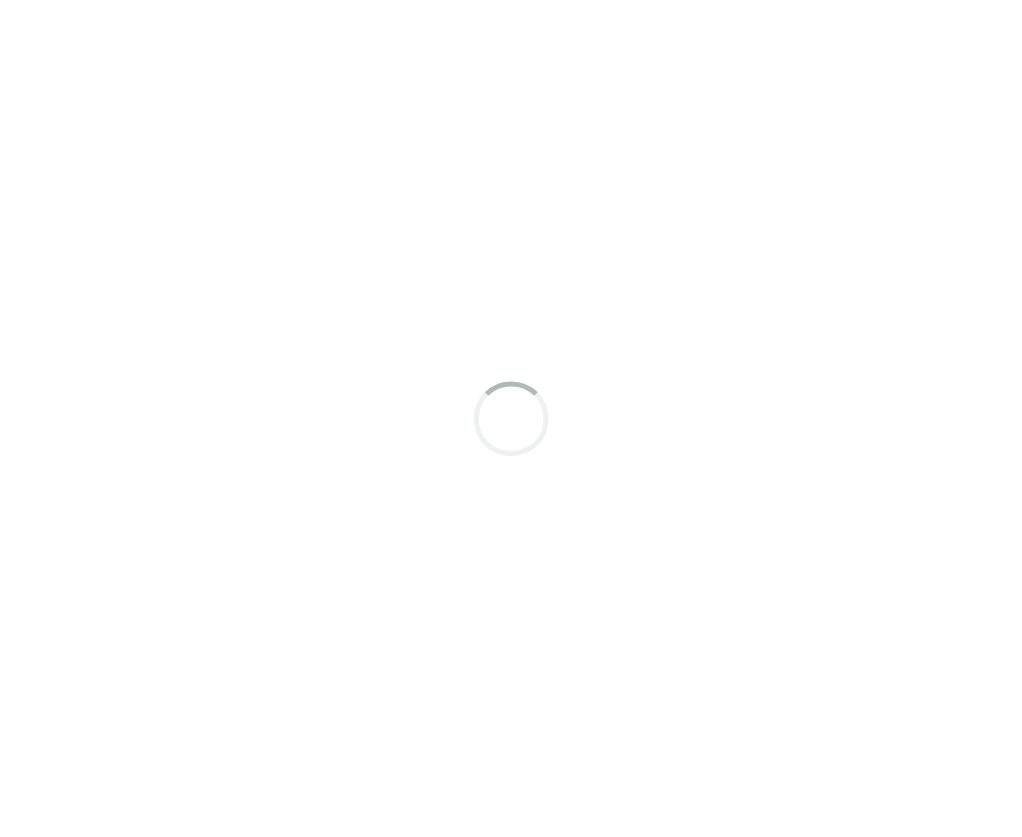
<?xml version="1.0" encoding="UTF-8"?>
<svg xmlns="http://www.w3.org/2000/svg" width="1022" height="837">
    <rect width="100%" height="100%" fill="#FFFFFF"/>
    <path d="M 486.5 394 C 500 380.5 522.5 380.5 536 394" fill="none" stroke="#AFBAB8" stroke-width="5"/>
    <path d="M 536 394 C 542.5 400.5 546 409.5 546 419 C 546.5 460.5 485 466.5 477 425.5 C 474.5 414 478.5 402 486.5 394" fill="none" stroke="#AFBAB8" stroke-opacity="0.2" stroke-width="5"/>
</svg>
